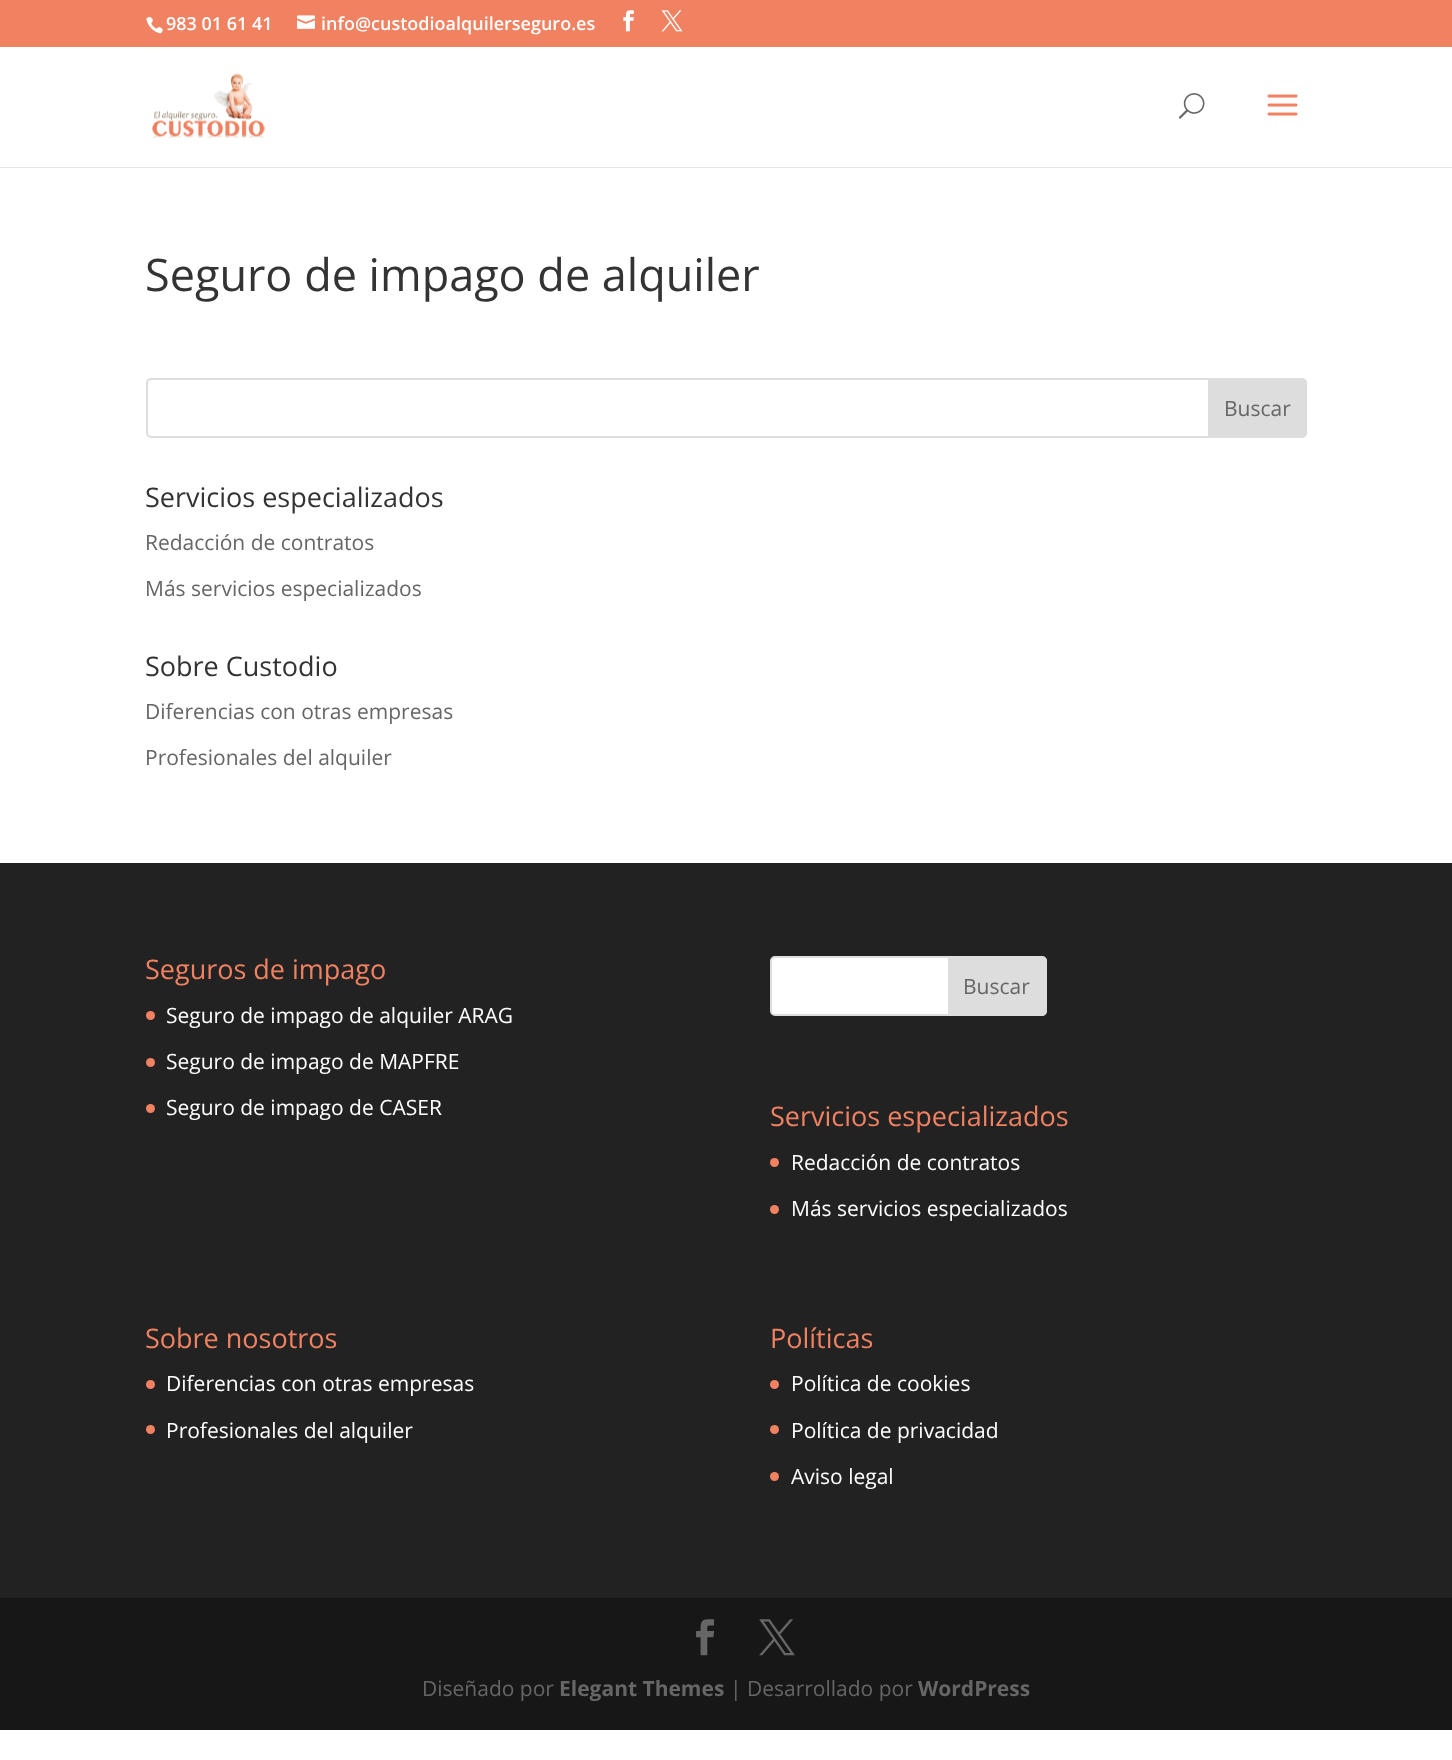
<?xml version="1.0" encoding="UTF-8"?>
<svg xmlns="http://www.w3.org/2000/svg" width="1452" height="1760">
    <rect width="100%" height="100%" fill="#FFFFFF"/>
    <rect x="0" y="0" width="1452" height="47" fill="#F08161"/>
    <image x="146" y="16" width="17" height="18" href="img_01.png"/>
    <text x="166" y="30" font-family="Open Sans" font-size="18" font-weight="600" fill="#FFFFFF">983 01 61 41</text>
    <image x="297" y="15" width="18" height="14" href="img_02.png"/>
    <text x="321" y="30" font-family="Open Sans" font-size="18" font-weight="600" fill="#FFFFFF">info@custodioalquilerseguro.es</text>
    <image x="623" y="10" width="11" height="22" href="img_03.png"/>
    <image x="661" y="10" width="22" height="22" href="img_04.png"/>
    <rect x="0" y="167" width="1452" height="1" fill="#E6E6E6"/>
    <image x="152" y="73" width="113" height="65" href="img_05.png"/>
    <image x="1178" y="93" width="27" height="26" href="img_06.png"/>
    <image x="1267" y="94" width="31" height="22" href="img_07.png"/>
    <text x="145" y="291" font-family="Open Sans" font-size="45" fill="#333333">Seguro de impago de alquiler</text>
    <rect x="147" y="379" width="1159" height="58" rx="4" fill="none" stroke="#DDDDDD" stroke-width="2"/>
    <path d="M 1209 379 H 1302 C 1304 379 1306 381 1306 383 V 433 C 1306 435 1304 437 1302 437 H 1209 Z" fill="#DDDDDD" stroke="#DDDDDD" stroke-width="2"/>
    <text x="1224" y="416" font-family="Open Sans" font-size="21" fill="#666666">Buscar</text>
    <text x="145" y="507" font-family="Open Sans" font-size="27" fill="#333333">Servicios especializados</text>
    <text x="145" y="550" font-family="Open Sans" font-size="21" fill="#666666">Redacción de contratos</text>
    <text x="145" y="596" font-family="Open Sans" font-size="21" fill="#666666">Más servicios especializados</text>
    <text x="145" y="676" font-family="Open Sans" font-size="27" fill="#333333">Sobre Custodio</text>
    <text x="145" y="719" font-family="Open Sans" font-size="21" fill="#666666">Diferencias con otras empresas</text>
    <text x="145" y="765" font-family="Open Sans" font-size="21" fill="#666666">Profesionales del alquiler</text>
    <rect x="0" y="863" width="1452" height="735" fill="#222222"/>
    <text x="145" y="979" font-family="Open Sans" font-size="27" fill="#F08161">Seguros de impago</text>
    <circle cx="150.5" cy="1015.5" r="4.5" fill="#F08161"/>
    <text x="166" y="1023" font-family="Open Sans" font-size="21" fill="#FFFFFF">Seguro de impago de alquiler ARAG</text>
    <circle cx="150.5" cy="1062.5" r="4.5" fill="#F08161"/>
    <text x="166" y="1069" font-family="Open Sans" font-size="21" fill="#FFFFFF">Seguro de impago de MAPFRE</text>
    <circle cx="150.5" cy="1108.5" r="4.5" fill="#F08161"/>
    <text x="166" y="1115" font-family="Open Sans" font-size="21" fill="#FFFFFF">Seguro de impago de CASER</text>
    <rect x="771" y="957" width="275" height="58" rx="4" fill="#FFFFFF" stroke="#DDDDDD" stroke-width="2"/>
    <path d="M 949 957 H 1042 C 1044 957 1046 959 1046 961 V 1011 C 1046 1013 1044 1015 1042 1015 H 949 Z" fill="#DDDDDD" stroke="#DDDDDD" stroke-width="2"/>
    <text x="963" y="994" font-family="Open Sans" font-size="21" fill="#666666">Buscar</text>
    <text x="770" y="1126" font-family="Open Sans" font-size="27" fill="#F08161">Servicios especializados</text>
    <circle cx="774.5" cy="1162.5" r="4.5" fill="#F08161"/>
    <text x="791" y="1170" font-family="Open Sans" font-size="21" fill="#FFFFFF">Redacción de contratos</text>
    <circle cx="774.5" cy="1209.5" r="4.5" fill="#F08161"/>
    <text x="791" y="1216" font-family="Open Sans" font-size="21" fill="#FFFFFF">Más servicios especializados</text>
    <text x="145" y="1348" font-family="Open Sans" font-size="27" fill="#F08161">Sobre nosotros</text>
    <circle cx="150.5" cy="1384.5" r="4.5" fill="#F08161"/>
    <text x="166" y="1391" font-family="Open Sans" font-size="21" fill="#FFFFFF">Diferencias con otras empresas</text>
    <circle cx="150.5" cy="1429.5" r="4.5" fill="#F08161"/>
    <text x="166" y="1438" font-family="Open Sans" font-size="21" fill="#FFFFFF">Profesionales del alquiler</text>
    <text x="770" y="1348" font-family="Open Sans" font-size="27" fill="#F08161">Políticas</text>
    <circle cx="774.5" cy="1384.5" r="4.5" fill="#F08161"/>
    <text x="791" y="1391" font-family="Open Sans" font-size="21" fill="#FFFFFF">Política de cookies</text>
    <circle cx="774.5" cy="1429.5" r="4.5" fill="#F08161"/>
    <text x="791" y="1438" font-family="Open Sans" font-size="21" fill="#FFFFFF">Política de privacidad</text>
    <circle cx="774.5" cy="1476.5" r="4.5" fill="#F08161"/>
    <text x="791" y="1484" font-family="Open Sans" font-size="21" fill="#FFFFFF">Aviso legal</text>
    <rect x="0" y="1598" width="1452" height="132" fill="#171717"/>
    <image x="696" y="1619" width="19" height="37" href="img_08.png"/>
    <image x="759" y="1619" width="36" height="37" href="img_09.png"/>
    <text x="422" y="1696" font-family="Open Sans" font-size="21" fill="#666666">Diseñado por</text>
    <text x="559" y="1696" font-family="Open Sans" font-size="21" font-weight="700" fill="#666666">Elegant Themes</text>
    <text x="730" y="1696" font-family="Open Sans" font-size="21" fill="#666666">| Desarrollado por</text>
    <text x="918" y="1696" font-family="Open Sans" font-size="21" font-weight="700" fill="#666666">WordPress</text>
</svg>
